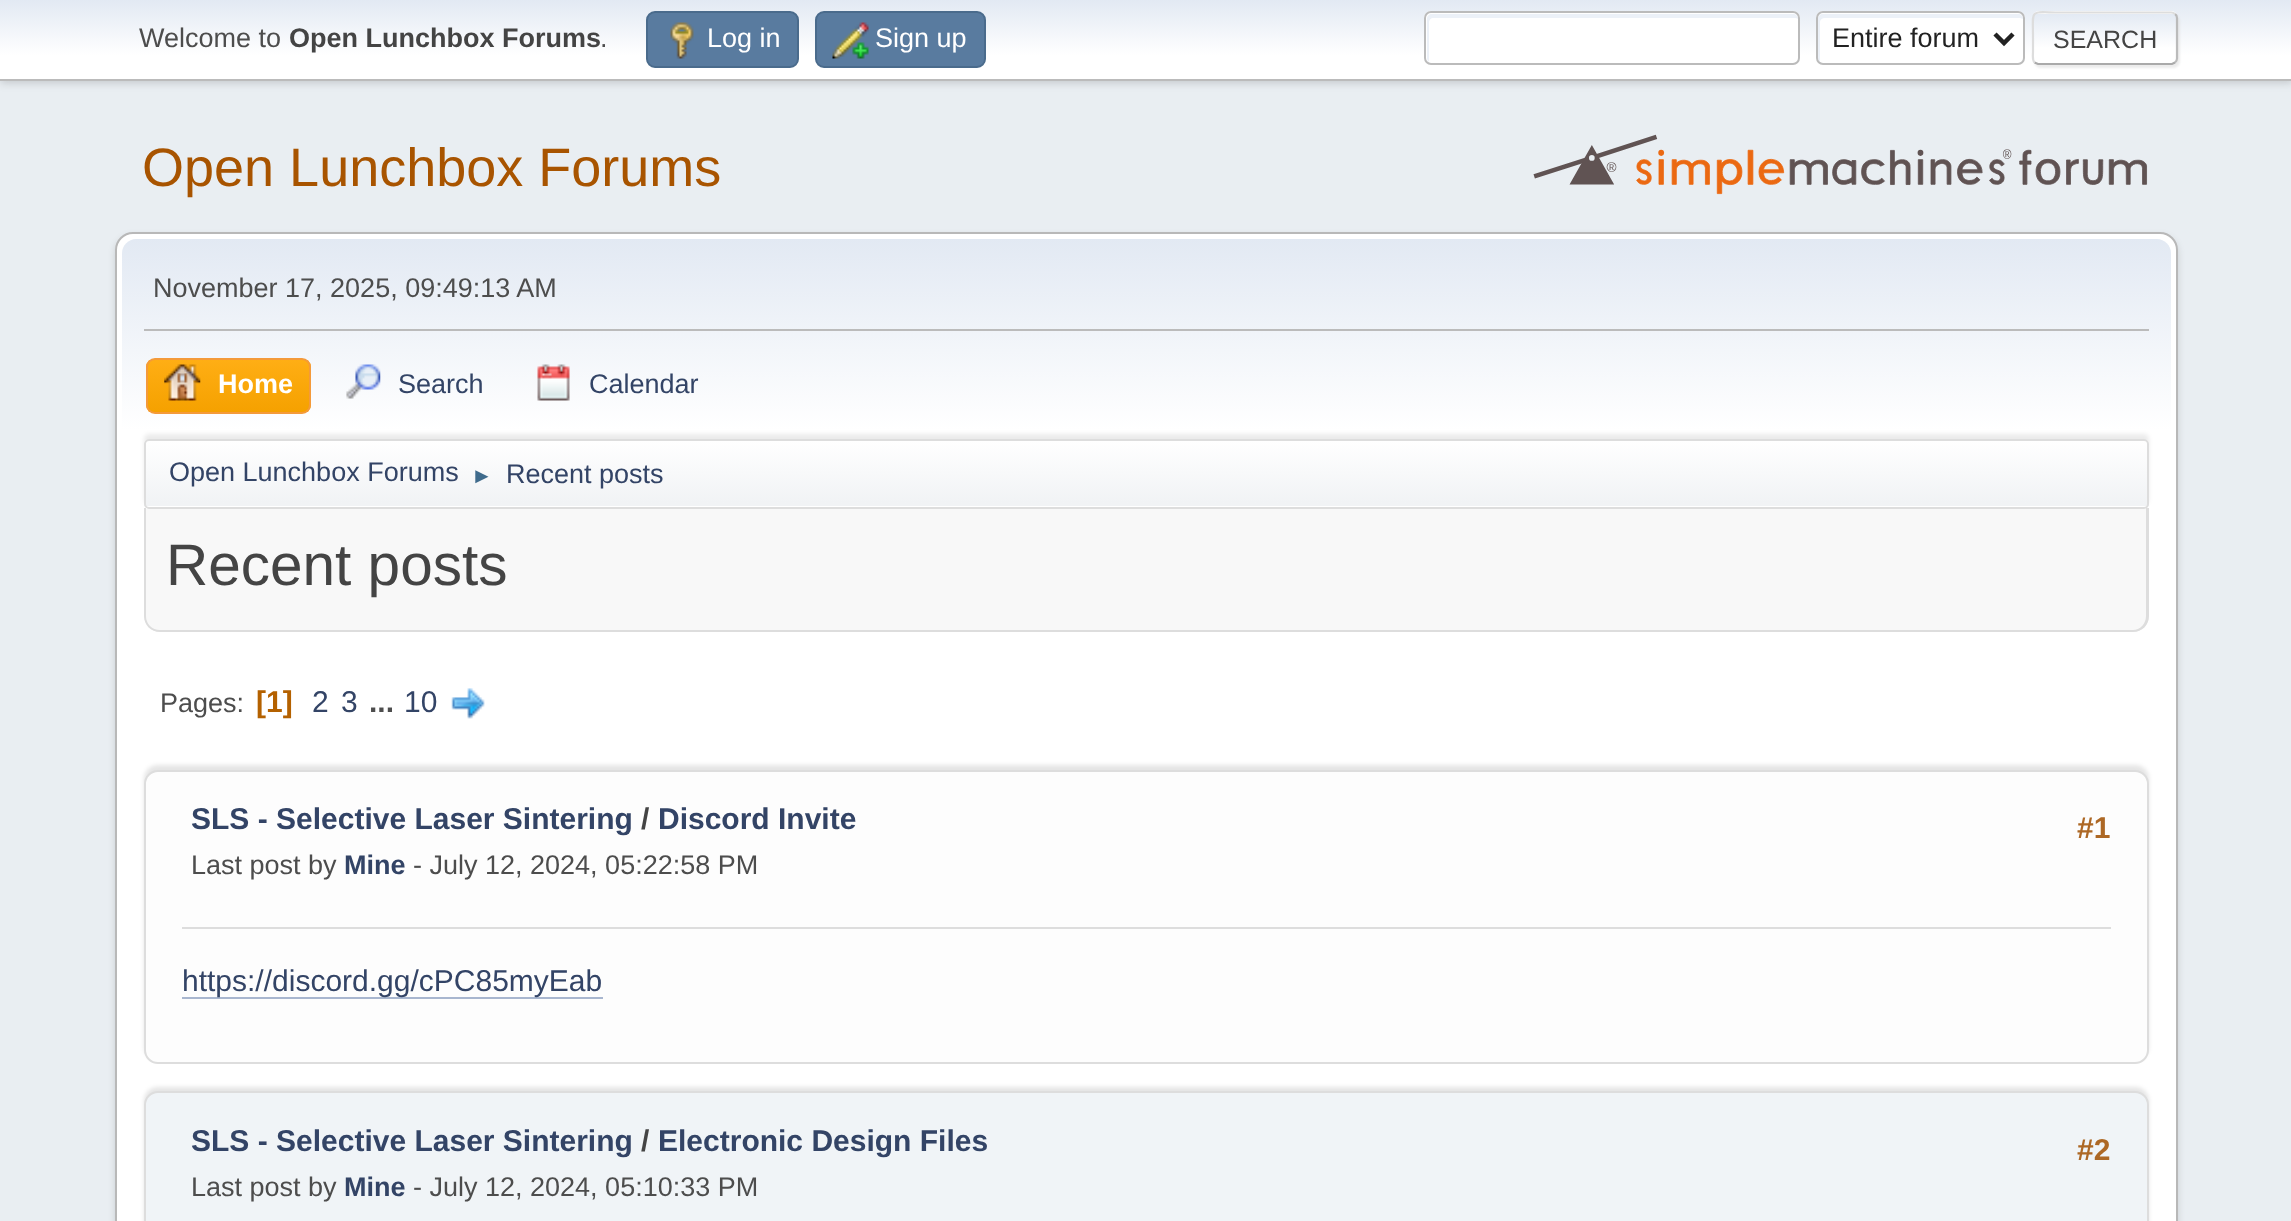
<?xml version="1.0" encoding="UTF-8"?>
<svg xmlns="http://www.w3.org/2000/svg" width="2291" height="1221">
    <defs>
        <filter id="blur1" x="-50%" y="-200%" width="200%" height="500%"><feGaussianBlur stdDeviation="4.5"/></filter>
        <linearGradient id="g1" gradientUnits="userSpaceOnUse" x1="1146" y1="0" x2="1146" y2="79"><stop offset="0" stop-color="#E2E9F3"/><stop offset="0.7" stop-color="#FFFFFF"/></linearGradient>
        <filter id="blur2" x="-50%" y="-200%" width="200%" height="500%"><feGaussianBlur stdDeviation="1"/></filter>
        <clipPath id="clip1"><rect x="2032" y="11" width="146" height="54" rx="7"/></clipPath>
        <linearGradient id="g2" gradientUnits="userSpaceOnUse" x1="2105" y1="-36" x2="2105" y2="14"><stop offset="0" stop-color="#E2E9F3"/><stop offset="0.7" stop-color="#FFFFFF"/></linearGradient>
        <linearGradient id="g3" gradientUnits="userSpaceOnUse" x1="2105" y1="13" x2="2105" y2="63"><stop offset="0" stop-color="#E2E9F3"/><stop offset="0.7" stop-color="#FFFFFF"/></linearGradient>
        <filter id="blur3" x="-50%" y="-200%" width="200%" height="500%"><feGaussianBlur stdDeviation="3.5"/></filter>
        <linearGradient id="g4" gradientUnits="userSpaceOnUse" x1="1146" y1="238" x2="1146" y2="513"><stop offset="0" stop-color="#E2E9F3"/><stop offset="0.7" stop-color="#FFFFFF"/></linearGradient>
        <clipPath id="clip2"><rect x="146" y="358" width="165" height="56" rx="9"/></clipPath>
        <linearGradient id="g5" gradientUnits="userSpaceOnUse" x1="228" y1="360" x2="228" y2="412"><stop offset="0" stop-color="#FFAE14"/><stop offset="1" stop-color="#F5A100"/></linearGradient>
        <filter id="blur4" x="-50%" y="-200%" width="200%" height="500%"><feGaussianBlur stdDeviation="2"/></filter>
        <clipPath id="clip3"><rect x="144" y="439" width="2005" height="70" rx="5"/></clipPath>
        <linearGradient id="g6" gradientUnits="userSpaceOnUse" x1="1146" y1="441" x2="1146" y2="506"><stop offset="0" stop-color="#FFFFFF"/><stop offset="0.95" stop-color="#F1F3F5"/></linearGradient>
    </defs>
    <rect width="100%" height="100%" fill="#E9EEF2"/>
    <rect x="0" y="2" width="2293" height="81" fill="#000000" fill-opacity="0.16" filter="url(#blur1)"/>
    <rect x="0" y="0" width="2291" height="79" fill="url(#g1)"/>
    <rect x="0" y="79" width="2291" height="2" fill="#BBBBBB"/>
    <text x="139" y="47" font-family="Liberation Sans" font-size="27" fill="#4D4D4D">Welcome to</text>
    <text x="289" y="47" font-family="Liberation Sans" font-size="27" font-weight="700" fill="#444444">Open Lunchbox Forums</text>
    <text x="600" y="47" font-family="Liberation Sans" font-size="27" fill="#4D4D4D">.</text>
    <rect x="647" y="12" width="151" height="55" rx="8" fill="#597B9F" stroke="#4A6B8C" stroke-width="2"/>
    <image x="670" y="22" width="24" height="37" href="img_01.png"/>
    <text x="707" y="47" font-family="Liberation Sans" font-size="27" fill="#FFFFFF">Log in</text>
    <rect x="816" y="12" width="169" height="55" rx="8" fill="#597B9F" stroke="#4A6B8C" stroke-width="2"/>
    <image x="832" y="22" width="37" height="37" href="img_02.png"/>
    <text x="875" y="47" font-family="Liberation Sans" font-size="27" fill="#FFFFFF">Sign up</text>
    <rect x="1424" y="11" width="376" height="54" rx="7" fill="#FFFFFF"/>
    <path d="M 1433 18 H 1796 L 1798 19 C 1798 16 1796 14 1793 14 H 1432 C 1429 14 1427 16 1427 19 V 58 C 1427 60 1428 61 1429 62 V 22 C 1429 20 1431 18 1433 18 Z" fill="#ECF1F8"/>
    <rect x="1425" y="12" width="374" height="52" rx="6" fill="none" stroke="#BBBBBB" stroke-width="2"/>
    <rect x="1816" y="11" width="209" height="54" rx="7" fill="#FFFFFF"/>
    <path d="M 1825 18 H 2020 L 2023 19 C 2023 16 2021 14 2018 14 H 1823 C 1820 14 1818 16 1818 19 V 58 C 1818 60 1819 61 1820 62 V 22 C 1820 20 1822 18 1825 18 Z" fill="#ECF1F8"/>
    <rect x="1817" y="12" width="207" height="52" rx="6" fill="none" stroke="#BBBBBB" stroke-width="2"/>
    <path d="M 1995 34 L 2004 43 L 2013 34" fill="none" stroke="#222222" stroke-width="4.5"/>
    <text x="1832" y="47" font-family="Liberation Sans" font-size="27" fill="#222222">Entire forum</text>
    <rect x="2034" y="14" width="146" height="54" rx="7" fill="#DDDDDD" fill-opacity="0.57" filter="url(#blur2)"/>
    <g clip-path="url(#clip1)">
        <rect x="2032" y="11" width="146" height="3" fill="url(#g2)"/>
        <rect x="2032" y="14" width="146" height="49" fill="url(#g3)"/>
    </g>
    <path d="M 2175 14 C 2176.5 15 2177 16.5 2177 18 V 58.5 C 2177 60 2176.5 61.5 2175 62.5" fill="none" stroke="#BBBBBB" stroke-width="2.2"/>
    <path d="M 2175 62.5 L 2172 64 H 2038 L 2034.5 62.5" fill="none" stroke="#AAAAAA" stroke-width="2.2"/>
    <path d="M 2034.5 62.5 C 2032 60 2033 55 2033 52 V 38 C 2033 7.5 2028.5 12.5 2060.5 12.5 H 2171 C 2172.5 12.5 2174 13 2175 14" fill="none" stroke="#DDDDDD" stroke-width="2.2"/>
    <text x="2053" y="48" font-family="Liberation Sans" font-size="25" fill="#444444">SEARCH</text>
    <text x="142" y="186" font-family="Liberation Sans" font-size="54" fill="#A85400">Open Lunchbox Forums</text>
    <image x="1533" y="134" width="615" height="61" href="img_03.png"/>
    <rect x="115" y="236" width="2063" height="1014" rx="18" fill="#000000" fill-opacity="0.14" filter="url(#blur3)"/>
    <rect x="116" y="233" width="2061" height="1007" rx="17" fill="#FFFFFF" stroke="#B8B8B8" stroke-width="2"/>
    <path d="M 136 239 H 2157 C 2164.5 239 2171 245.5 2171 253 V 513 H 122 V 253 C 122 245.5 128.5 239 136 239 Z" fill="url(#g4)"/>
    <rect x="144" y="329" width="2005" height="2" fill="#BBBBBB"/>
    <text x="153" y="297" font-family="Liberation Sans" font-size="27" fill="#4D4D4D">November 17, 2025, 09:49:13 AM</text>
    <g clip-path="url(#clip2)">
        <rect x="146" y="360" width="165" height="52" fill="url(#g5)"/>
    </g>
    <rect x="147" y="359" width="163" height="54" rx="8" fill="none" stroke="#F49A3A" stroke-width="2"/>
    <image x="164" y="364" width="37" height="37" href="img_04.png"/>
    <text x="218" y="393" font-family="Liberation Sans" font-size="27" font-weight="700" fill="#FFFFFF">Home</text>
    <image x="346" y="364" width="35" height="35" href="img_05.png"/>
    <text x="398" y="393" font-family="Liberation Sans" font-size="27" fill="#334466">Search</text>
    <image x="537" y="364" width="33" height="37" href="img_06.png"/>
    <text x="589" y="393" font-family="Liberation Sans" font-size="27" fill="#334466">Calendar</text>
    <rect x="144" y="434" width="2005" height="70" rx="5" fill="#000000" fill-opacity="0.08" filter="url(#blur4)"/>
    <rect x="144" y="439" width="2005" height="70" rx="5" fill="#FFFFFF"/>
    <g clip-path="url(#clip3)">
        <rect x="144" y="441" width="2005" height="65" fill="url(#g6)"/>
    </g>
    <rect x="145" y="440" width="2003" height="68" rx="4" fill="none" stroke="#DDDDDD" stroke-width="2"/>
    <text x="169" y="481" font-family="Liberation Sans" font-size="27" fill="#334466">Open Lunchbox Forums</text>
    <text x="471" y="483" font-family="Liberation Sans" font-size="22" fill="#3F6B8C">►</text>
    <text x="506" y="483" font-family="Liberation Sans" font-size="27" fill="#334466">Recent posts</text>
    <path d="M 144 509 H 2149 V 616 C 2149 625 2142 632 2133 632 H 160 C 151 632 144 625 144 616 Z" fill="#F8F8F8"/>
    <path d="M 144 508 H 2149 V 616 C 2149 625 2142 632 2133 632 H 160 C 151 632 144 625 144 616 Z M 146 508 H 2146 V 616 C 2146 624 2140 630 2133 630 H 160 C 152 630 146 624 146 616 Z" fill="#DDDDDD" fill-rule="evenodd"/>
    <text x="166" y="585" font-family="Liberation Sans" font-size="58.5" fill="#444444">Recent posts</text>
    <text x="160" y="712" font-family="Liberation Sans" font-size="27" fill="#4D4D4D">Pages:</text>
    <text x="256" y="712" font-family="Liberation Sans" font-size="30" font-weight="700" fill="#B46100">[1]</text>
    <text x="312" y="712" font-family="Liberation Sans" font-size="30" fill="#334466">2</text>
    <text x="341" y="712" font-family="Liberation Sans" font-size="30" fill="#334466">3</text>
    <text x="369" y="712" font-family="Liberation Sans" font-size="30" font-weight="700" fill="#4D4D4D">...</text>
    <text x="404" y="712" font-family="Liberation Sans" font-size="30" fill="#334466">10</text>
    <image x="451" y="688" width="34" height="31" href="img_07.png"/>
    <rect x="144" y="765" width="2005" height="295" rx="14" fill="#000000" fill-opacity="0.1" filter="url(#blur4)"/>
    <rect x="145" y="771" width="2003" height="292" rx="13" fill="#FDFDFD" stroke="#DDDDDD" stroke-width="2"/>
    <text x="191" y="829" font-family="Liberation Sans" font-size="30" font-weight="700" fill="#334466">SLS - Selective Laser Sintering</text>
    <text x="641" y="829" font-family="Liberation Sans" font-size="30" font-weight="700" fill="#444444">/</text>
    <text x="658" y="829" font-family="Liberation Sans" font-size="30" font-weight="700" fill="#334466">Discord Invite</text>
    <text x="191" y="874" font-family="Liberation Sans" font-size="27" fill="#4D4D4D">Last post by</text>
    <text x="344" y="874" font-family="Liberation Sans" font-size="27" font-weight="700" fill="#334466">Mine</text>
    <text x="413" y="874" font-family="Liberation Sans" font-size="27" fill="#4D4D4D">- July 12, 2024, 05:22:58 PM</text>
    <text x="2077" y="838" font-family="Liberation Sans" font-size="30" font-weight="700" fill="#AD6825">#1</text>
    <rect x="182" y="927" width="1929" height="2" fill="#DDDDDD"/>
    <rect x="182" y="997" width="421" height="2" fill="#A8B6CF"/>
    <text x="182" y="991" font-family="Liberation Sans" font-size="30" fill="#334466">https://discord.gg/cPC85myEab</text>
    <rect x="144" y="1087" width="2005" height="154" rx="14" fill="#000000" fill-opacity="0.1" filter="url(#blur4)"/>
    <rect x="145" y="1092" width="2003" height="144" rx="13" fill="#F0F4F7" stroke="#DDDDDD" stroke-width="2"/>
    <text x="191" y="1151" font-family="Liberation Sans" font-size="30" font-weight="700" fill="#334466">SLS - Selective Laser Sintering</text>
    <text x="641" y="1151" font-family="Liberation Sans" font-size="30" font-weight="700" fill="#444444">/</text>
    <text x="658" y="1151" font-family="Liberation Sans" font-size="30" font-weight="700" fill="#334466">Electronic Design Files</text>
    <text x="191" y="1196" font-family="Liberation Sans" font-size="27" fill="#4D4D4D">Last post by</text>
    <text x="344" y="1196" font-family="Liberation Sans" font-size="27" font-weight="700" fill="#334466">Mine</text>
    <text x="413" y="1196" font-family="Liberation Sans" font-size="27" fill="#4D4D4D">- July 12, 2024, 05:10:33 PM</text>
    <text x="2077" y="1160" font-family="Liberation Sans" font-size="30" font-weight="700" fill="#AD6825">#2</text>
</svg>
